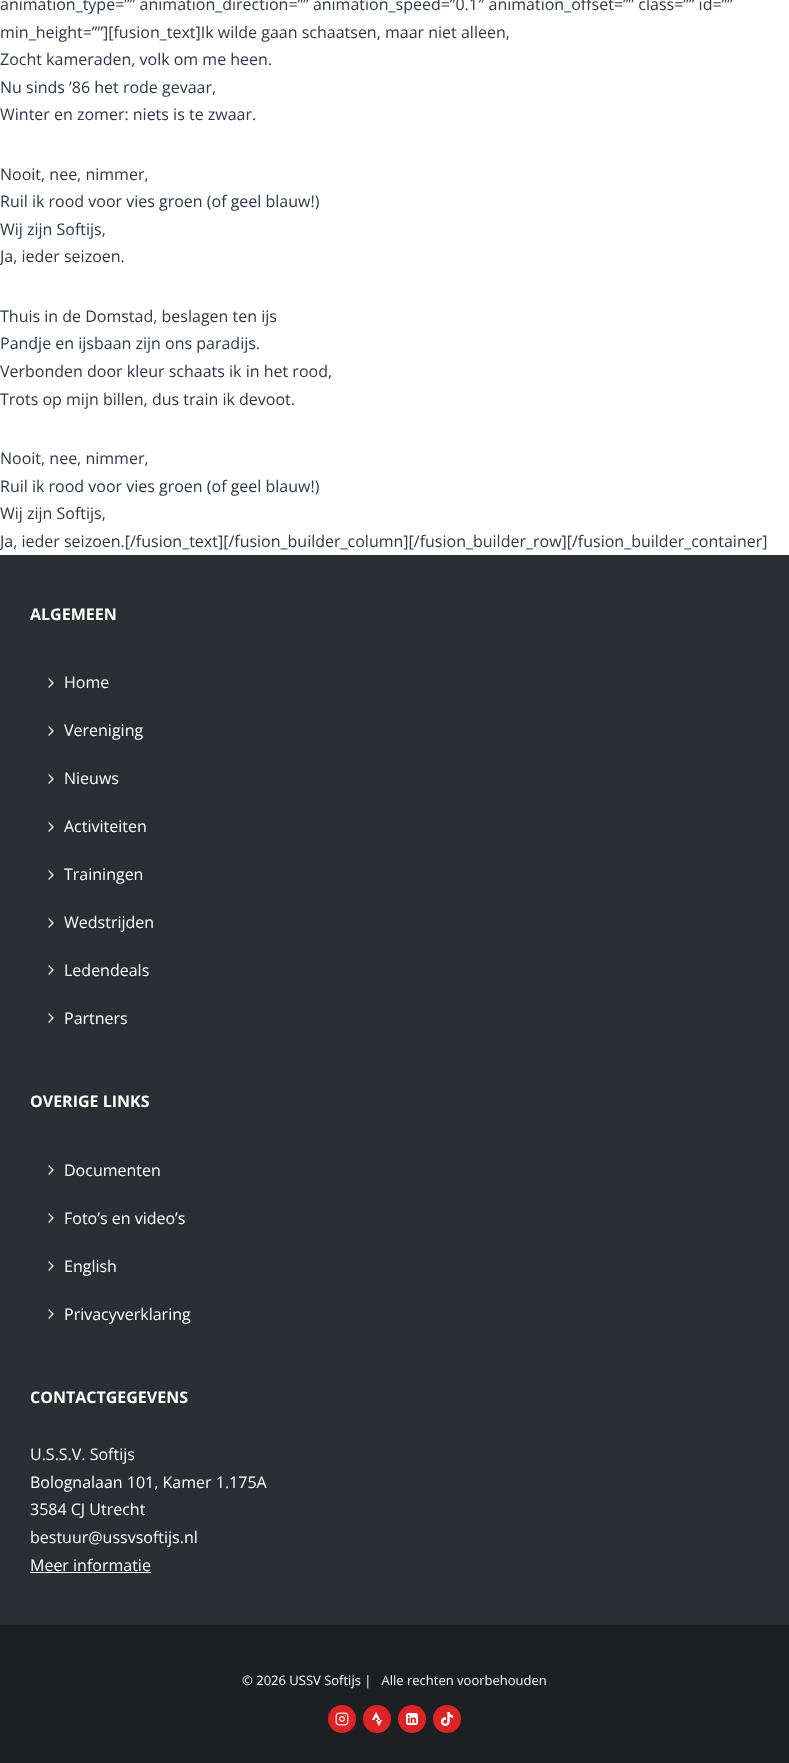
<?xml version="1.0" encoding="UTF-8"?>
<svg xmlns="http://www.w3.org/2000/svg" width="789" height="1763">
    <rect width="100%" height="100%" fill="#FFFFFF"/>
    <text font-family="Open Sans" font-size="16" fill="#2D3748">
        <tspan x="0" y="10">animation_type=”” animation_direction=”” animation_speed=”0.1″ animation_offset=”” class=”” id=””</tspan>
        <tspan x="0" y="38">min_height=””][fusion_text]Ik wilde gaan schaatsen, maar niet alleen,</tspan>
        <tspan x="0" y="65">Zocht kameraden, volk om me heen.</tspan>
        <tspan x="0" y="93">Nu sinds ’86 het rode gevaar,</tspan>
        <tspan x="0" y="120">Winter en zomer: niets is te zwaar.</tspan>
    </text>
    <text font-family="Open Sans" font-size="16" fill="#2D3748">
        <tspan x="0" y="180">Nooit, nee, nimmer,</tspan>
        <tspan x="0" y="207">Ruil ik rood voor vies groen (of geel blauw!)</tspan>
        <tspan x="0" y="235">Wij zijn Softijs,</tspan>
        <tspan x="0" y="262">Ja, ieder seizoen.</tspan>
    </text>
    <text font-family="Open Sans" font-size="16" fill="#2D3748">
        <tspan x="0" y="322">Thuis in de Domstad, beslagen ten ijs</tspan>
        <tspan x="0" y="349">Pandje en ijsbaan zijn ons paradijs.</tspan>
        <tspan x="0" y="377">Verbonden door kleur schaats ik in het rood,</tspan>
        <tspan x="0" y="405">Trots op mijn billen, dus train ik devoot.</tspan>
    </text>
    <text font-family="Open Sans" font-size="16" fill="#2D3748">
        <tspan x="0" y="464">Nooit, nee, nimmer,</tspan>
        <tspan x="0" y="492">Ruil ik rood voor vies groen (of geel blauw!)</tspan>
        <tspan x="0" y="519">Wij zijn Softijs,</tspan>
        <tspan x="0" y="547">Ja, ieder seizoen.[/fusion_text][/fusion_builder_column][/fusion_builder_row][/fusion_builder_container]</tspan>
    </text>
    <rect x="0" y="555" width="789" height="1070" fill="#2B2E32"/>
    <text x="30" y="620" font-family="Open Sans" font-size="16" font-weight="700" fill="#FFFFFF">ALGEMEEN</text>
    <path d="M 49 687 L 53 683 L 49 679" fill="none" stroke="#FFFFFF" stroke-width="1.3" stroke-linecap="round" stroke-linejoin="round"/>
    <text x="64" y="688" font-family="Open Sans" font-size="16" fill="#FFFFFF">Home</text>
    <path d="M 49 735 L 53 731 L 49 727" fill="none" stroke="#FFFFFF" stroke-width="1.3" stroke-linecap="round" stroke-linejoin="round"/>
    <text x="64" y="736" font-family="Open Sans" font-size="16" fill="#FFFFFF">Vereniging</text>
    <path d="M 49 783 L 53 779 L 49 775" fill="none" stroke="#FFFFFF" stroke-width="1.3" stroke-linecap="round" stroke-linejoin="round"/>
    <text x="64" y="784" font-family="Open Sans" font-size="16" fill="#FFFFFF">Nieuws</text>
    <path d="M 49 831 L 53 827 L 49 823" fill="none" stroke="#FFFFFF" stroke-width="1.3" stroke-linecap="round" stroke-linejoin="round"/>
    <text x="64" y="832" font-family="Open Sans" font-size="16" fill="#FFFFFF">Activiteiten</text>
    <path d="M 49 879 L 53 875 L 49 871" fill="none" stroke="#FFFFFF" stroke-width="1.3" stroke-linecap="round" stroke-linejoin="round"/>
    <text x="64" y="880" font-family="Open Sans" font-size="16" fill="#FFFFFF">Trainingen</text>
    <path d="M 49 927 L 53 923 L 49 919" fill="none" stroke="#FFFFFF" stroke-width="1.3" stroke-linecap="round" stroke-linejoin="round"/>
    <text x="64" y="928" font-family="Open Sans" font-size="16" fill="#FFFFFF">Wedstrijden</text>
    <path d="M 49 974 L 53 970 L 49 966" fill="none" stroke="#FFFFFF" stroke-width="1.3" stroke-linecap="round" stroke-linejoin="round"/>
    <text x="64" y="976" font-family="Open Sans" font-size="16" fill="#FFFFFF">Ledendeals</text>
    <path d="M 49 1022 L 53 1018 L 49 1014" fill="none" stroke="#FFFFFF" stroke-width="1.3" stroke-linecap="round" stroke-linejoin="round"/>
    <text x="64" y="1024" font-family="Open Sans" font-size="16" fill="#FFFFFF">Partners</text>
    <text x="30" y="1107" font-family="Open Sans" font-size="16" font-weight="700" fill="#FFFFFF">OVERIGE LINKS</text>
    <path d="M 49 1174 L 53 1170 L 49 1166" fill="none" stroke="#FFFFFF" stroke-width="1.3" stroke-linecap="round" stroke-linejoin="round"/>
    <text x="64" y="1176" font-family="Open Sans" font-size="16" fill="#FFFFFF">Documenten</text>
    <path d="M 49 1222 L 53 1218 L 49 1214" fill="none" stroke="#FFFFFF" stroke-width="1.3" stroke-linecap="round" stroke-linejoin="round"/>
    <text x="64" y="1224" font-family="Open Sans" font-size="16" fill="#FFFFFF">Foto’s en video’s</text>
    <path d="M 49 1270 L 53 1266 L 49 1262" fill="none" stroke="#FFFFFF" stroke-width="1.3" stroke-linecap="round" stroke-linejoin="round"/>
    <text x="64" y="1272" font-family="Open Sans" font-size="16" fill="#FFFFFF">English</text>
    <path d="M 49 1318 L 53 1314 L 49 1310" fill="none" stroke="#FFFFFF" stroke-width="1.3" stroke-linecap="round" stroke-linejoin="round"/>
    <text x="64" y="1320" font-family="Open Sans" font-size="16" fill="#FFFFFF">Privacyverklaring</text>
    <text x="30" y="1403" font-family="Open Sans" font-size="16" font-weight="700" fill="#FFFFFF">CONTACTGEGEVENS</text>
    <text font-family="Open Sans" font-size="16" fill="#FFFFFF">
        <tspan x="30" y="1460">U.S.S.V. Softijs</tspan>
        <tspan x="30" y="1488">Bolognalaan 101, Kamer 1.175A</tspan>
        <tspan x="30" y="1515">3584 CJ Utrecht</tspan>
        <tspan x="30" y="1543">bestuur@ussvsoftijs.nl</tspan>
        <tspan x="30" y="1571">Meer informatie</tspan>
    </text>
    <rect x="30" y="1572" width="121" height="1" fill="#FFFFFF"/>
    <rect x="0" y="1625" width="789" height="138" fill="#1D1F22"/>
    <text x="242" y="1685" font-family="Open Sans" font-size="13" fill="#FFFFFF" xml:space="preserve">© 2026 USSV Softijs |   Alle rechten voorbehouden</text>
    <circle cx="342" cy="1719" r="14" fill="#DD2426"/>
    <image x="335" y="1712" width="14" height="14" href="img_01.png"/>
    <circle cx="377" cy="1719" r="14" fill="#DD2426"/>
    <image x="372" y="1712" width="10" height="14" href="img_02.png"/>
    <circle cx="412" cy="1719" r="14" fill="#DD2426"/>
    <image x="406" y="1713" width="12" height="12" href="img_03.png"/>
    <circle cx="447" cy="1719" r="14" fill="#DD2426"/>
    <image x="440" y="1712" width="14" height="14" href="img_04.png"/>
</svg>
